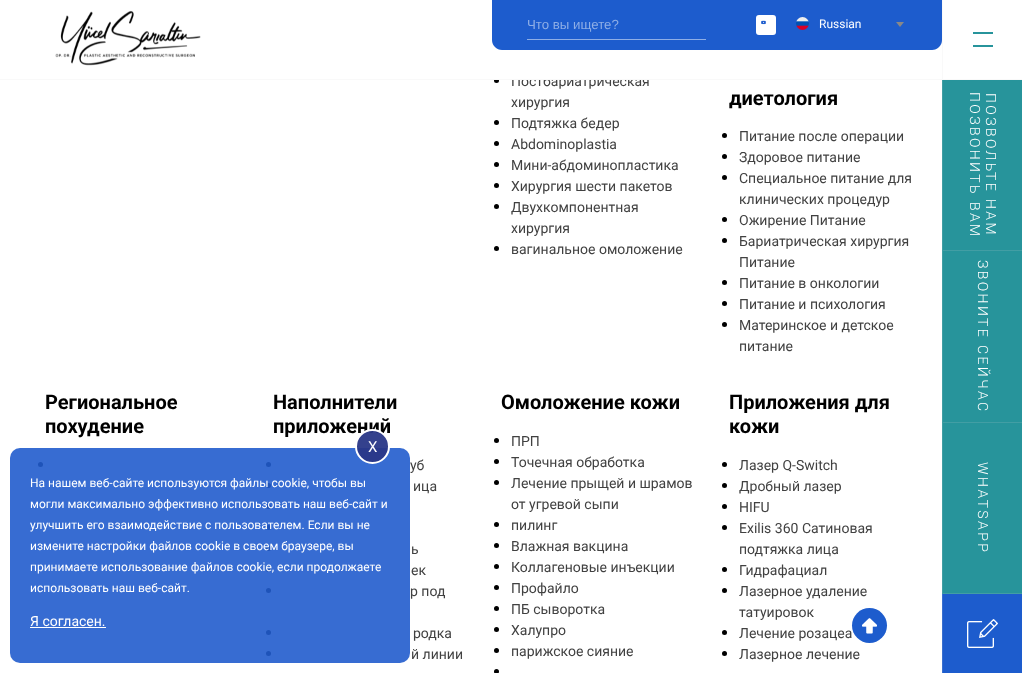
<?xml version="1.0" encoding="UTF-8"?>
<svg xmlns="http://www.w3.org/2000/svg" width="1022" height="673">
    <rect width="100%" height="100%" fill="#FFFFFF"/>
    <circle cx="496.5" cy="80.5" r="2.5" fill="#000000"/>
    <text x="511" y="86" font-family="Roboto" font-size="14" fill="#414141">Постбариатрическая</text>
    <rect x="494" y="75" width="155" height="4" fill="#FFFFFF"/>
    <rect x="0" y="79" width="1022" height="1" fill="#F9F9F9"/>
    <image x="55" y="10" width="146" height="56" href="img_01.png"/>
    <path d="M 492 0 H 942 V 40 C 942 45.5 937.5 50 932 50 H 502 C 496.5 50 492 45.5 492 40 Z" fill="#1D5CCD"/>
    <rect x="527" y="39" width="179" height="1" fill="#8EAEE6"/>
    <text x="527" y="29" font-family="Liberation Sans" font-size="13.25" fill="#8EAEE6">Что вы ищете?</text>
    <rect x="756" y="15" width="20" height="20" rx="3" fill="#FFFFFF"/>
    <image x="761" y="20" width="5" height="5" href="img_02.png"/>
    <image x="796" y="17" width="13" height="13" href="img_03.png"/>
    <text x="819" y="28" font-family="Roboto" font-size="12" fill="#FFFFFF">Russian</text>
    <path d="M 896 22 H 904 L 900 27 Z" fill="#888888"/>
    <rect x="942" y="0" width="1" height="79" fill="#F9F9F9"/>
    <rect x="973" y="32" width="20" height="2" fill="#27949B"/>
    <rect x="973" y="45" width="20" height="2" fill="#27949B"/>
    <rect x="942" y="80" width="80" height="514" fill="#27949B"/>
    <path d="M 1022 251 H 942 L 943 250 H 1022 Z" fill="#429EA4"/>
    <path d="M 942 251 V 80 H 943 V 250 Z" fill="#D8D8D8" fill-opacity="0.15"/>
    <text x="970" y="92" transform="rotate(90 970 92)" font-family="Roboto" font-size="14" font-weight="300" letter-spacing="2.4" fill="#FFFFFF">ПОЗВОНИТЬ ВАМ</text>
    <text x="986" y="93" transform="rotate(90 986 93)" font-family="Roboto" font-size="14" font-weight="300" letter-spacing="2.4" fill="#FFFFFF">ПОЗВОЛЬТЕ НАМ</text>
    <path d="M 1022 423 H 942 L 943 422 H 1022 Z" fill="#429EA4"/>
    <path d="M 942 423 V 251 H 943 V 422 Z" fill="#D8D8D8" fill-opacity="0.15"/>
    <text x="978" y="260" transform="rotate(90 978 260)" font-family="Roboto" font-size="14" font-weight="300" letter-spacing="2.4" fill="#FFFFFF">ЗВОНИТЕ СЕЙЧАС</text>
    <path d="M 1022 594 H 942 L 943 593 H 1022 Z" fill="#429EA4"/>
    <path d="M 942 594 V 423 H 943 V 593 Z" fill="#D8D8D8" fill-opacity="0.15"/>
    <text x="978" y="462" transform="rotate(90 978 462)" font-family="Roboto" font-size="14" font-weight="300" letter-spacing="2.4" fill="#FFFFFF">WHATSAPP</text>
    <rect x="943" y="594" width="79" height="79" fill="#1D5CCD"/>
    <path d="M 942 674 V 594 H 943 V 673 Z" fill="#396FCF"/>
    <image x="967" y="619" width="31" height="29" href="img_04.png"/>
    <text x="511" y="107" font-family="Roboto" font-size="14" fill="#414141">хирургия</text>
    <circle cx="496.5" cy="122.5" r="2.5" fill="#000000"/>
    <text x="511" y="128" font-family="Roboto" font-size="14" fill="#414141">Подтяжка бедер</text>
    <circle cx="496.5" cy="143.5" r="2.5" fill="#000000"/>
    <text x="511" y="149" font-family="Roboto" font-size="14" fill="#414141">Abdominoplastia</text>
    <circle cx="496.5" cy="164.5" r="2.5" fill="#000000"/>
    <text x="511" y="170" font-family="Roboto" font-size="14" fill="#414141">Мини-абдоминопластика</text>
    <circle cx="496.5" cy="185.5" r="2.5" fill="#000000"/>
    <text x="511" y="191" font-family="Roboto" font-size="14" fill="#414141">Хирургия шести пакетов</text>
    <circle cx="496.5" cy="206.5" r="2.5" fill="#000000"/>
    <text font-family="Roboto" font-size="14" fill="#414141">
        <tspan x="511" y="212">Двухкомпонентная</tspan>
        <tspan x="511" y="233">хирургия</tspan>
    </text>
    <circle cx="496.5" cy="248.5" r="2.5" fill="#000000"/>
    <text x="511" y="254" font-family="Roboto" font-size="14" fill="#414141">вагинальное омоложение</text>
    <text x="729" y="105" font-family="Roboto" font-size="20" font-weight="700" fill="#000000">диетология</text>
    <circle cx="724.5" cy="135.5" r="2.5" fill="#000000"/>
    <text x="739" y="141" font-family="Roboto" font-size="14" fill="#414141">Питание после операции</text>
    <circle cx="724.5" cy="156.5" r="2.5" fill="#000000"/>
    <text x="739" y="162" font-family="Roboto" font-size="14" fill="#414141">Здоровое питание</text>
    <circle cx="724.5" cy="177.5" r="2.5" fill="#000000"/>
    <text font-family="Roboto" font-size="14" fill="#414141">
        <tspan x="739" y="183">Специальное питание для</tspan>
        <tspan x="739" y="204">клинических процедур</tspan>
    </text>
    <circle cx="724.5" cy="219.5" r="2.5" fill="#000000"/>
    <text x="739" y="225" font-family="Roboto" font-size="14" fill="#414141">Ожирение Питание</text>
    <circle cx="724.5" cy="240.5" r="2.5" fill="#000000"/>
    <text font-family="Roboto" font-size="14" fill="#414141">
        <tspan x="739" y="246">Бариатрическая хирургия</tspan>
        <tspan x="739" y="267">Питание</tspan>
    </text>
    <circle cx="724.5" cy="282.5" r="2.5" fill="#000000"/>
    <text x="739" y="288" font-family="Roboto" font-size="14" fill="#414141">Питание в онкологии</text>
    <circle cx="724.5" cy="303.5" r="2.5" fill="#000000"/>
    <text x="739" y="309" font-family="Roboto" font-size="14" fill="#414141">Питание и психология</text>
    <circle cx="724.5" cy="324.5" r="2.5" fill="#000000"/>
    <text font-family="Roboto" font-size="14" fill="#414141">
        <tspan x="739" y="330">Материнское и детское</tspan>
        <tspan x="739" y="351">питание</tspan>
    </text>
    <text font-family="Roboto" font-size="20" font-weight="700" fill="#000000">
        <tspan x="45" y="409">Региональное</tspan>
        <tspan x="45" y="433">похудение</tspan>
    </text>
    <circle cx="40.5" cy="464.5" r="2.5" fill="#000000"/>
    <text font-family="Roboto" font-size="20" font-weight="700" fill="#000000">
        <tspan x="273" y="409">Наполнители</tspan>
        <tspan x="273" y="433">приложений</tspan>
    </text>
    <circle cx="268.5" cy="464.5" r="2.5" fill="#000000"/>
    <text x="410" y="470" font-family="Roboto" font-size="14" fill="#414141">уб</text>
    <circle cx="268.5" cy="485.5" r="2.5" fill="#000000"/>
    <text x="413" y="491" font-family="Roboto" font-size="14" fill="#414141">ица</text>
    <circle cx="268.5" cy="506.5" r="2.5" fill="#000000"/>
    <circle cx="268.5" cy="527.5" r="2.5" fill="#000000"/>
    <circle cx="268.5" cy="548.5" r="2.5" fill="#000000"/>
    <text x="411" y="554" font-family="Roboto" font-size="14" fill="#414141">ь</text>
    <circle cx="268.5" cy="569.5" r="2.5" fill="#000000"/>
    <text x="411" y="575" font-family="Roboto" font-size="14" fill="#414141">ек</text>
    <circle cx="268.5" cy="590.5" r="2.5" fill="#000000"/>
    <text x="410" y="596" font-family="Roboto" font-size="14" fill="#414141">р под</text>
    <circle cx="268.5" cy="632.5" r="2.5" fill="#000000"/>
    <text x="413" y="638" font-family="Roboto" font-size="14" fill="#414141">родка</text>
    <circle cx="268.5" cy="653.5" r="2.5" fill="#000000"/>
    <text x="411" y="659" font-family="Roboto" font-size="14" fill="#414141">й линии</text>
    <text x="501" y="409" font-family="Roboto" font-size="20" font-weight="700" fill="#000000">Омоложение кожи</text>
    <circle cx="496.5" cy="440.5" r="2.5" fill="#000000"/>
    <text x="511" y="446" font-family="Roboto" font-size="14" fill="#414141">ПРП</text>
    <circle cx="496.5" cy="461.5" r="2.5" fill="#000000"/>
    <text x="511" y="467" font-family="Roboto" font-size="14" fill="#414141">Точечная обработка</text>
    <circle cx="496.5" cy="482.5" r="2.5" fill="#000000"/>
    <text font-family="Roboto" font-size="14" fill="#414141">
        <tspan x="511" y="488">Лечение прыщей и шрамов</tspan>
        <tspan x="511" y="509">от угревой сыпи</tspan>
    </text>
    <circle cx="496.5" cy="524.5" r="2.5" fill="#000000"/>
    <text x="511" y="530" font-family="Roboto" font-size="14" fill="#414141">пилинг</text>
    <circle cx="496.5" cy="545.5" r="2.5" fill="#000000"/>
    <text x="511" y="551" font-family="Roboto" font-size="14" fill="#414141">Влажная вакцина</text>
    <circle cx="496.5" cy="566.5" r="2.5" fill="#000000"/>
    <text x="511" y="572" font-family="Roboto" font-size="14" fill="#414141">Коллагеновые инъекции</text>
    <circle cx="496.5" cy="587.5" r="2.5" fill="#000000"/>
    <text x="511" y="593" font-family="Roboto" font-size="14" fill="#414141">Профайло</text>
    <circle cx="496.5" cy="608.5" r="2.5" fill="#000000"/>
    <text x="511" y="614" font-family="Roboto" font-size="14" fill="#414141">ПБ сыворотка</text>
    <circle cx="496.5" cy="629.5" r="2.5" fill="#000000"/>
    <text x="511" y="635" font-family="Roboto" font-size="14" fill="#414141">Халупро</text>
    <circle cx="496.5" cy="650.5" r="2.5" fill="#000000"/>
    <text x="511" y="656" font-family="Roboto" font-size="14" fill="#414141">парижское сияние</text>
    <circle cx="496.5" cy="671.5" r="2.5" fill="#000000"/>
    <text font-family="Roboto" font-size="20" font-weight="700" fill="#000000">
        <tspan x="729" y="409">Приложения для</tspan>
        <tspan x="729" y="433">кожи</tspan>
    </text>
    <circle cx="724.5" cy="464.5" r="2.5" fill="#000000"/>
    <text x="739" y="470" font-family="Roboto" font-size="14" fill="#414141">Лазер Q-Switch</text>
    <circle cx="724.5" cy="485.5" r="2.5" fill="#000000"/>
    <text x="739" y="491" font-family="Roboto" font-size="14" fill="#414141">Дробный лазер</text>
    <circle cx="724.5" cy="506.5" r="2.5" fill="#000000"/>
    <text x="739" y="512" font-family="Roboto" font-size="14" fill="#414141">HIFU</text>
    <circle cx="724.5" cy="527.5" r="2.5" fill="#000000"/>
    <text font-family="Roboto" font-size="14" fill="#414141">
        <tspan x="739" y="533">Exilis 360 Сатиновая</tspan>
        <tspan x="739" y="554">подтяжка лица</tspan>
    </text>
    <circle cx="724.5" cy="569.5" r="2.5" fill="#000000"/>
    <text x="739" y="575" font-family="Roboto" font-size="14" fill="#414141">Гидрафациал</text>
    <circle cx="724.5" cy="590.5" r="2.5" fill="#000000"/>
    <text font-family="Roboto" font-size="14" fill="#414141">
        <tspan x="739" y="596">Лазерное удаление</tspan>
        <tspan x="739" y="617">татуировок</tspan>
    </text>
    <circle cx="724.5" cy="632.5" r="2.5" fill="#000000"/>
    <text x="739" y="638" font-family="Roboto" font-size="14" fill="#414141">Лечение розацеа</text>
    <circle cx="724.5" cy="653.5" r="2.5" fill="#000000"/>
    <text x="739" y="659" font-family="Roboto" font-size="14" fill="#414141">Лазерное лечение</text>
    <rect x="10" y="448" width="400" height="215" rx="10" fill="#215CCD" fill-opacity="0.9"/>
    <circle cx="372.5" cy="446.5" r="16.5" fill="#293787" fill-opacity="0.95" stroke="#FFFFFF" stroke-width="2"/>
    <text x="368" y="452" font-family="Roboto" font-size="15" fill="#FFFFFF">X</text>
    <text font-family="Roboto" font-size="12" fill="#FFFFFF">
        <tspan x="30" y="487">На нашем веб-сайте используются файлы cookie, чтобы вы</tspan>
        <tspan x="30" y="508">могли максимально эффективно использовать наш веб-сайт и</tspan>
        <tspan x="30" y="529">улучшить его взаимодействие с пользователем. Если вы не</tspan>
        <tspan x="30" y="550">измените настройки файлов cookie в своем браузере, вы</tspan>
        <tspan x="30" y="571">принимаете использование файлов cookie, если продолжаете</tspan>
        <tspan x="30" y="592">использовать наш веб-сайт.</tspan>
    </text>
    <text x="30" y="626" font-family="Roboto" font-size="14" fill="#FFFFFF">Я согласен.</text>
    <rect x="30" y="627" width="76" height="1" fill="#FFFFFF"/>
    <circle cx="869.5" cy="625.5" r="17.5" fill="#1D5CCD"/>
    <image x="862" y="618" width="15" height="16" href="img_05.png"/>
</svg>
